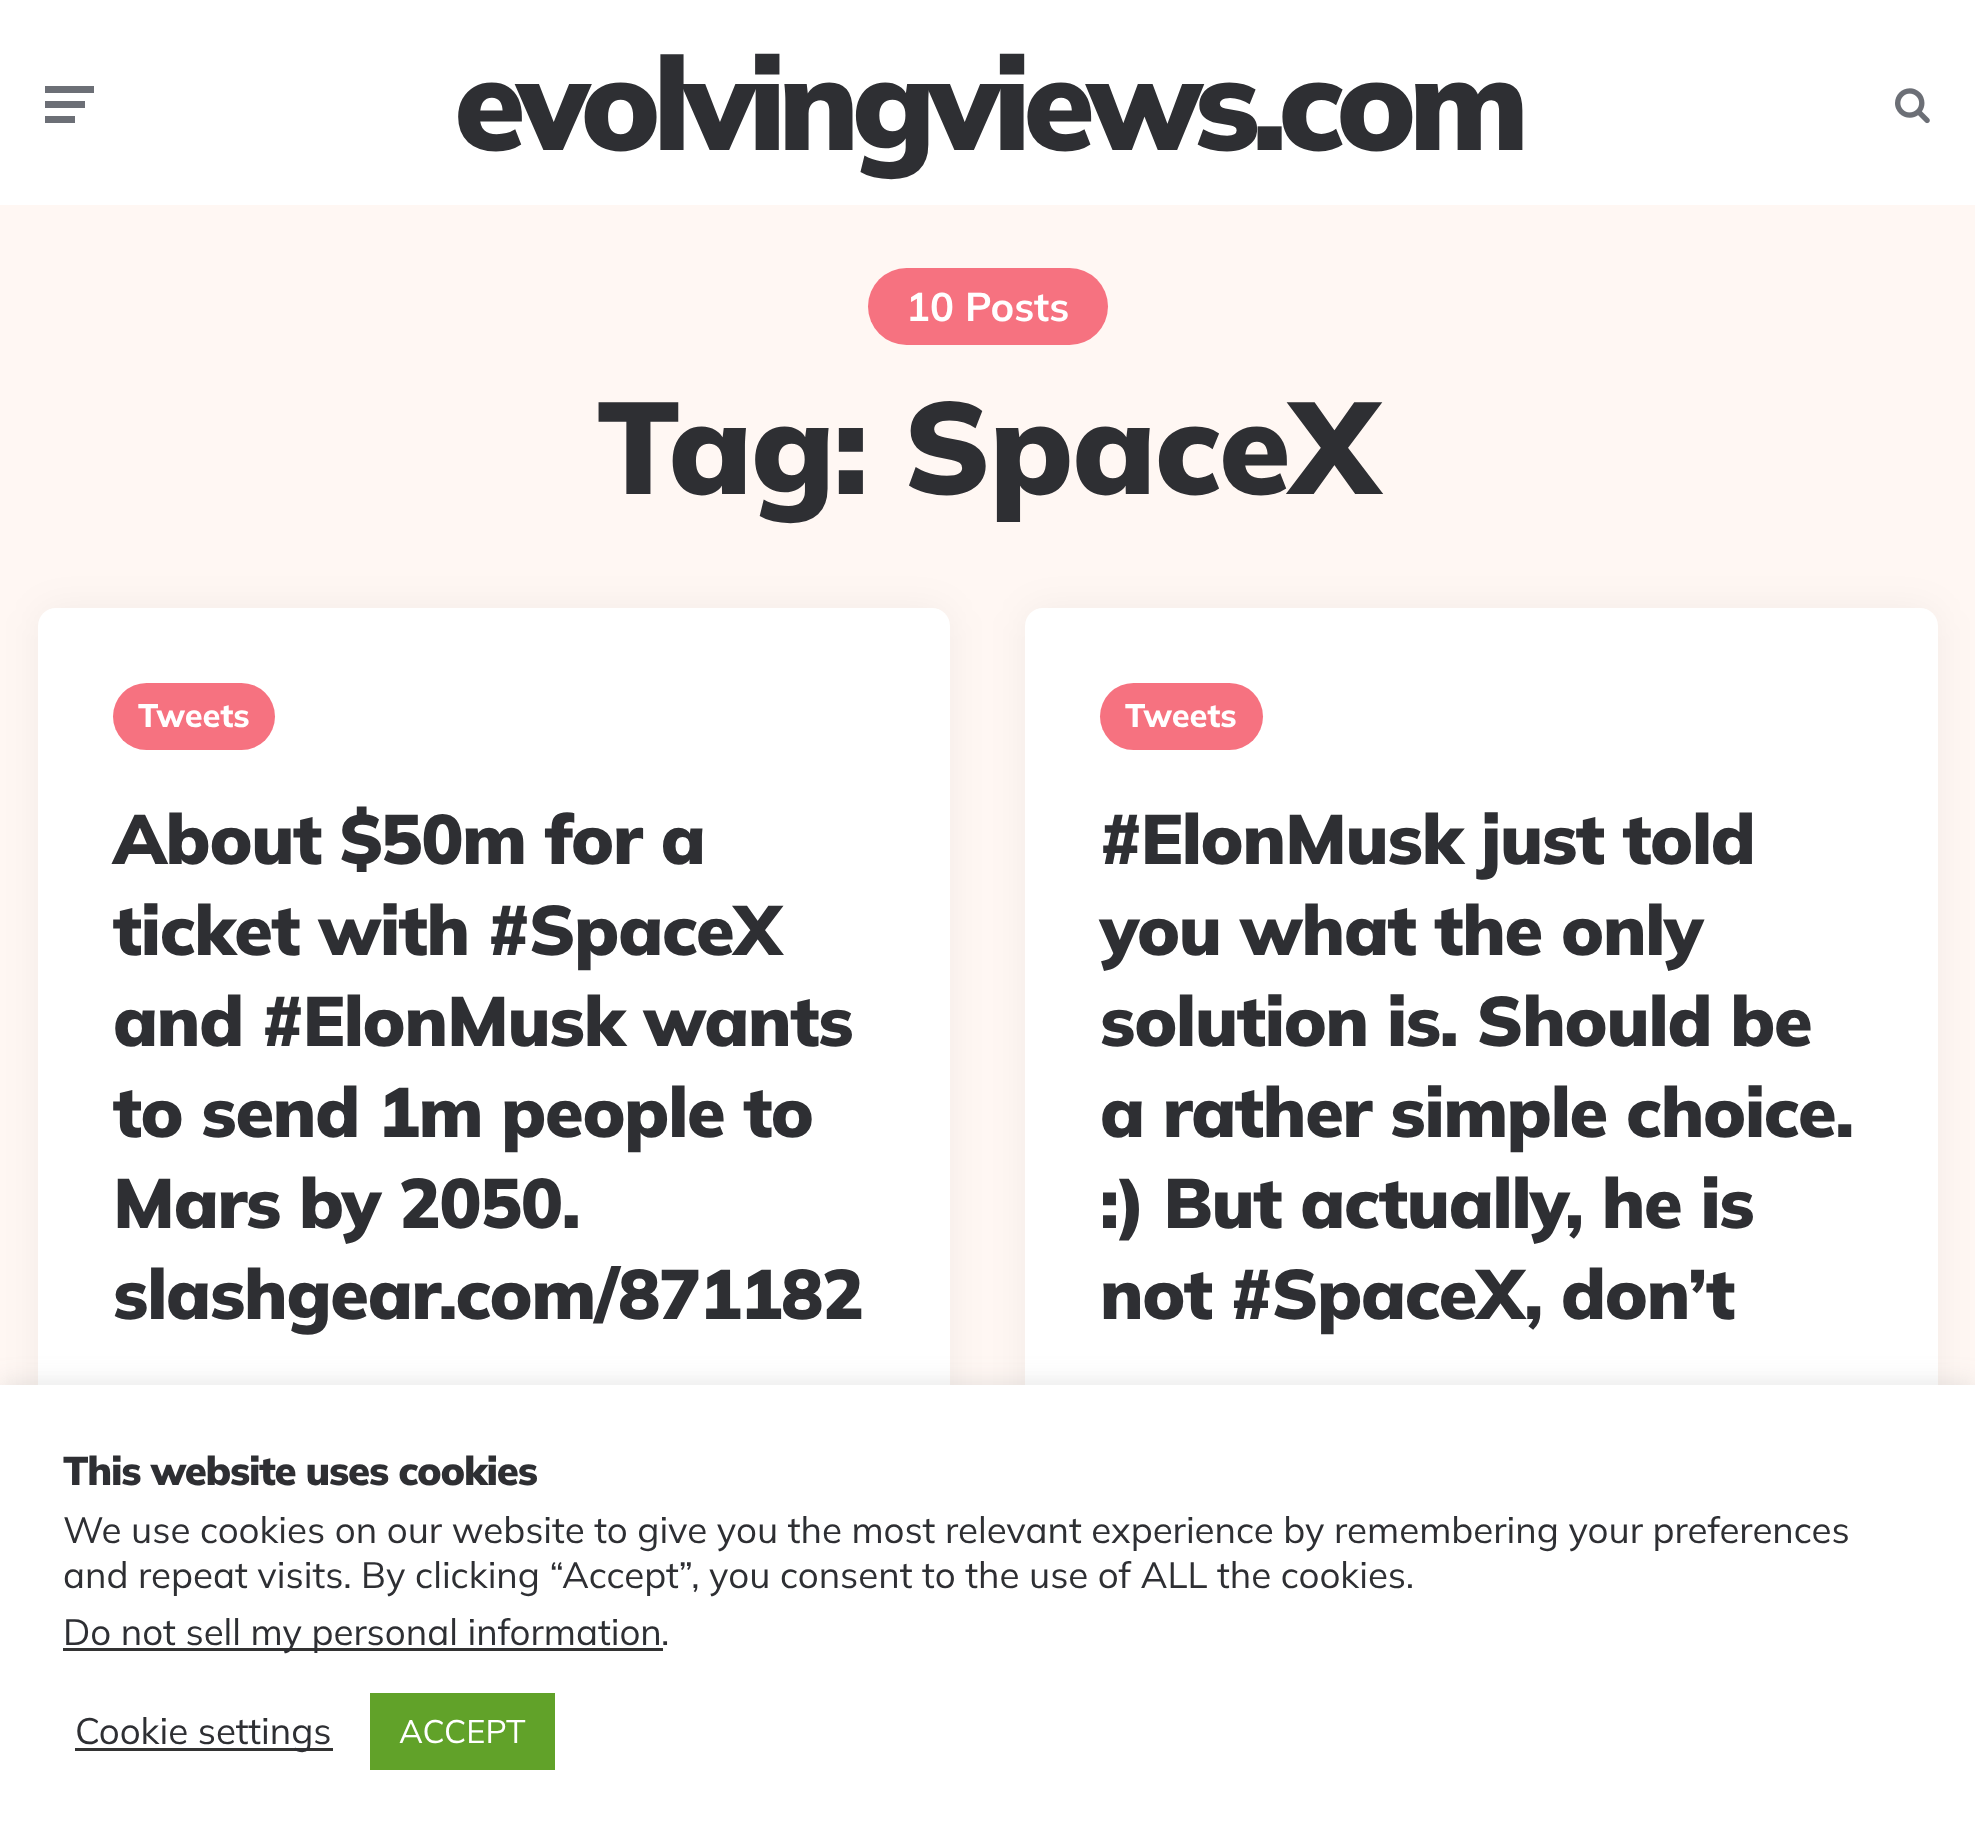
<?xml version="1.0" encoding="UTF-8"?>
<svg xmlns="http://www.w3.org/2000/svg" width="1975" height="1844">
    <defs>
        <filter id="blur1" x="-50%" y="-200%" width="200%" height="500%"><feGaussianBlur stdDeviation="19"/></filter>
        <filter id="blur2" x="-50%" y="-200%" width="200%" height="500%"><feGaussianBlur stdDeviation="12.5"/></filter>
    </defs>
    <rect width="100%" height="100%" fill="#FFF7F3"/>
    <rect x="0" y="0" width="1975" height="205" fill="#FFFFFF"/>
    <path d="M 45 89 V 93 H 94 V 86 H 45 Z M 45 104 V 108 H 85 V 101 H 45 Z M 45 119 V 123 H 75 V 116 H 45 Z" fill="#6C6F76"/>
    <text x="454" y="150" font-family="Mulish" font-size="130" font-weight="900" letter-spacing="-7.5" fill="#2E2F33">evolvingviews.com</text>
    <image x="1895" y="88" width="35" height="36" href="img_01.png"/>
    <rect x="868" y="268" width="240" height="77" rx="38.5" fill="#F67280"/>
    <text x="906" y="321" font-family="Mulish" font-size="40" font-weight="700" fill="#FFFFFF">10 Posts</text>
    <text x="597" y="494" font-family="Mulish" font-size="130" font-weight="900" letter-spacing="-1.25" fill="#2E2F33">Tag: SpaceX</text>
    <rect x="38" y="608" width="912" height="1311" rx="18" fill="#000000" fill-opacity="0.05" filter="url(#blur1)"/>
    <rect x="38" y="608" width="912" height="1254" rx="18" fill="#FFFFFF"/>
    <rect x="113" y="683" width="162" height="67" rx="33.5" fill="#F67280"/>
    <text x="138" y="727" font-family="Mulish" font-size="32.5" font-weight="800" fill="#FFFFFF">Tweets</text>
    <text font-family="Mulish" font-size="70" font-weight="900" letter-spacing="-1.25" fill="#2E2F33">
        <tspan x="113" y="864">About $50m for a</tspan>
        <tspan x="113" y="955">ticket with #SpaceX</tspan>
        <tspan x="113" y="1046">and #ElonMusk wants</tspan>
        <tspan x="113" y="1137">to send 1m people to</tspan>
        <tspan x="113" y="1228">Mars by 2050.</tspan>
        <tspan x="113" y="1319">slashgear.com/871182</tspan>
    </text>
    <rect x="1025" y="608" width="913" height="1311" rx="18" fill="#000000" fill-opacity="0.05" filter="url(#blur1)"/>
    <rect x="1025" y="608" width="913" height="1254" rx="18" fill="#FFFFFF"/>
    <rect x="1100" y="683" width="163" height="67" rx="33.5" fill="#F67280"/>
    <text x="1125" y="727" font-family="Mulish" font-size="32.5" font-weight="800" fill="#FFFFFF">Tweets</text>
    <text font-family="Mulish" font-size="70" font-weight="900" letter-spacing="-1.25" fill="#2E2F33">
        <tspan x="1100" y="864">#ElonMusk just told</tspan>
        <tspan x="1100" y="955">you what the only</tspan>
        <tspan x="1100" y="1046">solution is. Should be</tspan>
        <tspan x="1100" y="1137">a rather simple choice.</tspan>
        <tspan x="1100" y="1228">:) But actually, he is</tspan>
        <tspan x="1100" y="1319">not #SpaceX, don’t</tspan>
    </text>
    <rect x="0" y="1383" width="1975" height="460" fill="#ACABAB" fill-opacity="0.3" filter="url(#blur2)"/>
    <rect x="0" y="1385" width="1975" height="459" fill="#FFFFFF"/>
    <text x="63" y="1485" font-family="Mulish" font-size="40" font-weight="900" letter-spacing="-1.25" fill="#2E2F33">This website uses cookies</text>
    <text font-family="Mulish" font-size="36.65" fill="#2E2F33">
        <tspan x="63" y="1543">We use cookies on our website to give you the most relevant experience by remembering your preferences</tspan>
        <tspan x="63" y="1588">and repeat visits. By clicking “Accept”, you consent to the use of ALL the cookies.</tspan>
    </text>
    <rect x="63" y="1648" width="600" height="3" fill="#333333"/>
    <text x="63" y="1645" font-family="Mulish" font-size="36.65" fill="#2E2F33">Do not sell my personal information</text>
    <text x="661" y="1645" font-family="Mulish" font-size="36.65" fill="#2E2F33">.</text>
    <rect x="75" y="1748" width="258" height="3" fill="#333333"/>
    <text x="75" y="1744" font-family="Mulish" font-size="36.65" fill="#2E2F33">Cookie settings</text>
    <rect x="370" y="1693" width="185" height="77" fill="#61A229"/>
    <text x="399" y="1743" font-family="Mulish" font-size="32.5" fill="#FFFFFF">ACCEPT</text>
</svg>
